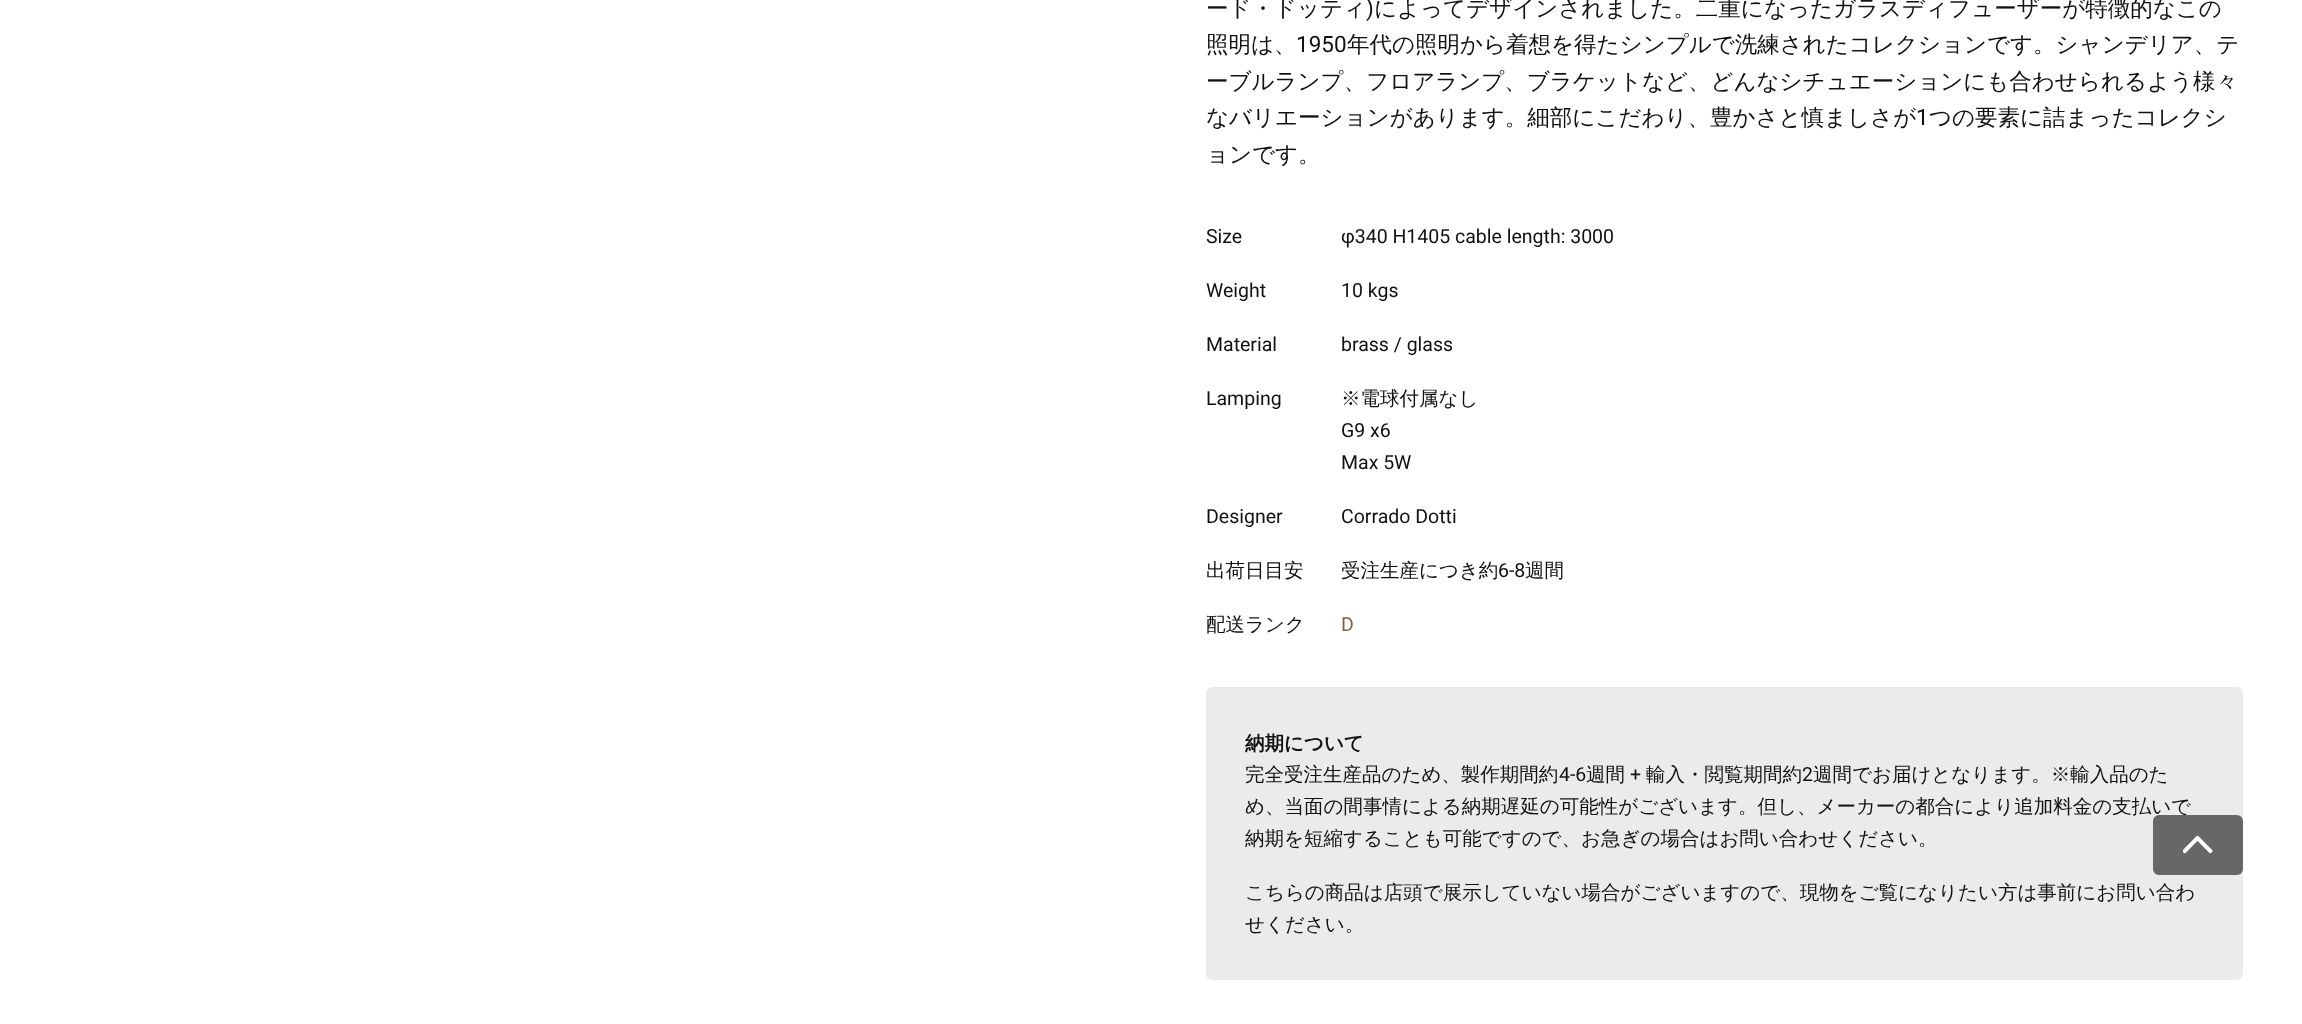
<?xml version="1.0" encoding="UTF-8"?>
<svg xmlns="http://www.w3.org/2000/svg" width="2302" height="1024">
    <rect width="100%" height="100%" fill="#FFFFFF"/>
    <text x="1206" y="16" font-family="WenQuanYi Zen Hei" font-size="22.5" font-weight="500" fill="#111111">ード・ドッティ</text>
    <text x="1366" y="16" font-family="Roboto" font-size="22.5" fill="#111111">)</text>
    <text x="1374" y="16" font-family="WenQuanYi Zen Hei" font-size="22.5" font-weight="500" fill="#111111">によってデザインされました。二重になったガラスディフューザーが特徴的なこの</text>
    <text x="1206" y="52" font-family="WenQuanYi Zen Hei" font-size="22.5" font-weight="500" fill="#111111">照明は、</text>
    <text x="1296" y="52" font-family="Roboto" font-size="22.5" fill="#111111">1950</text>
    <text x="1347" y="52" font-family="WenQuanYi Zen Hei" font-size="22.5" font-weight="500" fill="#111111">年代の照明から着想を得たシンプルで洗練されたコレクションです。シャンデリア、テ</text>
    <text font-family="WenQuanYi Zen Hei" font-size="22.5" font-weight="500" fill="#111111">
        <tspan x="1206" y="89">ーブルランプ、フロアランプ、ブラケットなど、どんなシチュエーションにも合わせられるよう様々</tspan>
        <tspan x="1206" y="125">なバリエーションがあります。細部にこだわり、豊かさと慎ましさが</tspan>
    </text>
    <text x="1916" y="125" font-family="Roboto" font-size="22.5" fill="#111111">1</text>
    <text x="1929" y="125" font-family="WenQuanYi Zen Hei" font-size="22.5" font-weight="500" fill="#111111">つの要素に詰まったコレクシ</text>
    <text x="1206" y="162" font-family="WenQuanYi Zen Hei" font-size="22.5" font-weight="500" fill="#111111">ョンです。</text>
    <text x="1206" y="243" font-family="Roboto" font-size="19.5" fill="#111111">Size</text>
    <text x="1341" y="243" font-family="Roboto" font-size="19.5" fill="#111111">φ340 H1405 cable length: 3000</text>
    <text x="1206" y="297" font-family="Roboto" font-size="19.5" fill="#111111">Weight</text>
    <text x="1341" y="297" font-family="Roboto" font-size="19.5" fill="#111111">10 kgs</text>
    <text x="1206" y="351" font-family="Roboto" font-size="19.5" fill="#111111">Material</text>
    <text x="1341" y="351" font-family="Roboto" font-size="19.5" fill="#111111">brass / glass</text>
    <text x="1206" y="405" font-family="Roboto" font-size="19.5" fill="#111111">Lamping</text>
    <text x="1341" y="405" font-family="WenQuanYi Zen Hei" font-size="19.5" font-weight="500" fill="#111111">※電球付属なし</text>
    <text font-family="Roboto" font-size="19.5" fill="#111111">
        <tspan x="1341" y="437">G9 x6</tspan>
        <tspan x="1341" y="469">Max 5W</tspan>
    </text>
    <text x="1206" y="523" font-family="Roboto" font-size="19.5" fill="#111111">Designer</text>
    <text x="1341" y="523" font-family="Roboto" font-size="19.5" fill="#111111">Corrado Dotti</text>
    <text x="1206" y="577" font-family="WenQuanYi Zen Hei" font-size="19.5" font-weight="500" fill="#111111">出荷日目安</text>
    <text x="1341" y="577" font-family="WenQuanYi Zen Hei" font-size="19.5" font-weight="500" fill="#111111">受注生産につき約</text>
    <text x="1498" y="577" font-family="Roboto" font-size="19.5" fill="#111111">6-8</text>
    <text x="1525" y="577" font-family="WenQuanYi Zen Hei" font-size="19.5" font-weight="500" fill="#111111">週間</text>
    <text x="1206" y="631" font-family="WenQuanYi Zen Hei" font-size="19.5" font-weight="500" fill="#111111">配送ランク</text>
    <text x="1341" y="631" font-family="Roboto" font-size="19.5" fill="#816339">D</text>
    <rect x="1206" y="687" width="1037" height="293" rx="6" fill="#EBEBEB"/>
    <text x="1245" y="750" font-family="WenQuanYi Zen Hei" font-size="19.5" font-weight="700" fill="#111111">納期について</text>
    <text x="1245" y="781" font-family="WenQuanYi Zen Hei" font-size="19.5" font-weight="500" fill="#111111">完全受注生産品のため、製作期間約</text>
    <text x="1559" y="781" font-family="Roboto" font-size="19.5" fill="#111111">4-6</text>
    <text x="1586" y="781" font-family="WenQuanYi Zen Hei" font-size="19.5" font-weight="500" fill="#111111">週間</text>
    <text x="1630" y="781" font-family="Roboto" font-size="19.5" fill="#111111">+</text>
    <text x="1646" y="781" font-family="WenQuanYi Zen Hei" font-size="19.5" font-weight="500" fill="#111111">輸入・閲覧期間約</text>
    <text x="1802" y="781" font-family="Roboto" font-size="19.5" fill="#111111">2</text>
    <text x="1813" y="781" font-family="WenQuanYi Zen Hei" font-size="19.5" font-weight="500" fill="#111111">週間でお届けとなります。※輸入品のた</text>
    <text font-family="WenQuanYi Zen Hei" font-size="19.5" font-weight="500" fill="#111111">
        <tspan x="1245" y="813">め、当面の間事情による納期遅延の可能性がございます。但し、メーカーの都合により追加料金の支払いで</tspan>
        <tspan x="1245" y="845">納期を短縮することも可能ですので、お急ぎの場合はお問い合わせください。</tspan>
    </text>
    <text font-family="WenQuanYi Zen Hei" font-size="19.5" font-weight="500" fill="#111111">
        <tspan x="1245" y="899">こちらの商品は店頭で展示していない場合がございますので、現物をご覧になりたい方は事前にお問い合わ</tspan>
        <tspan x="1245" y="931">せください。</tspan>
    </text>
    <rect x="2153" y="815" width="90" height="60" rx="6" fill="#676767"/>
    <image x="2183" y="835" width="30" height="19" href="img_01.png"/>
</svg>
